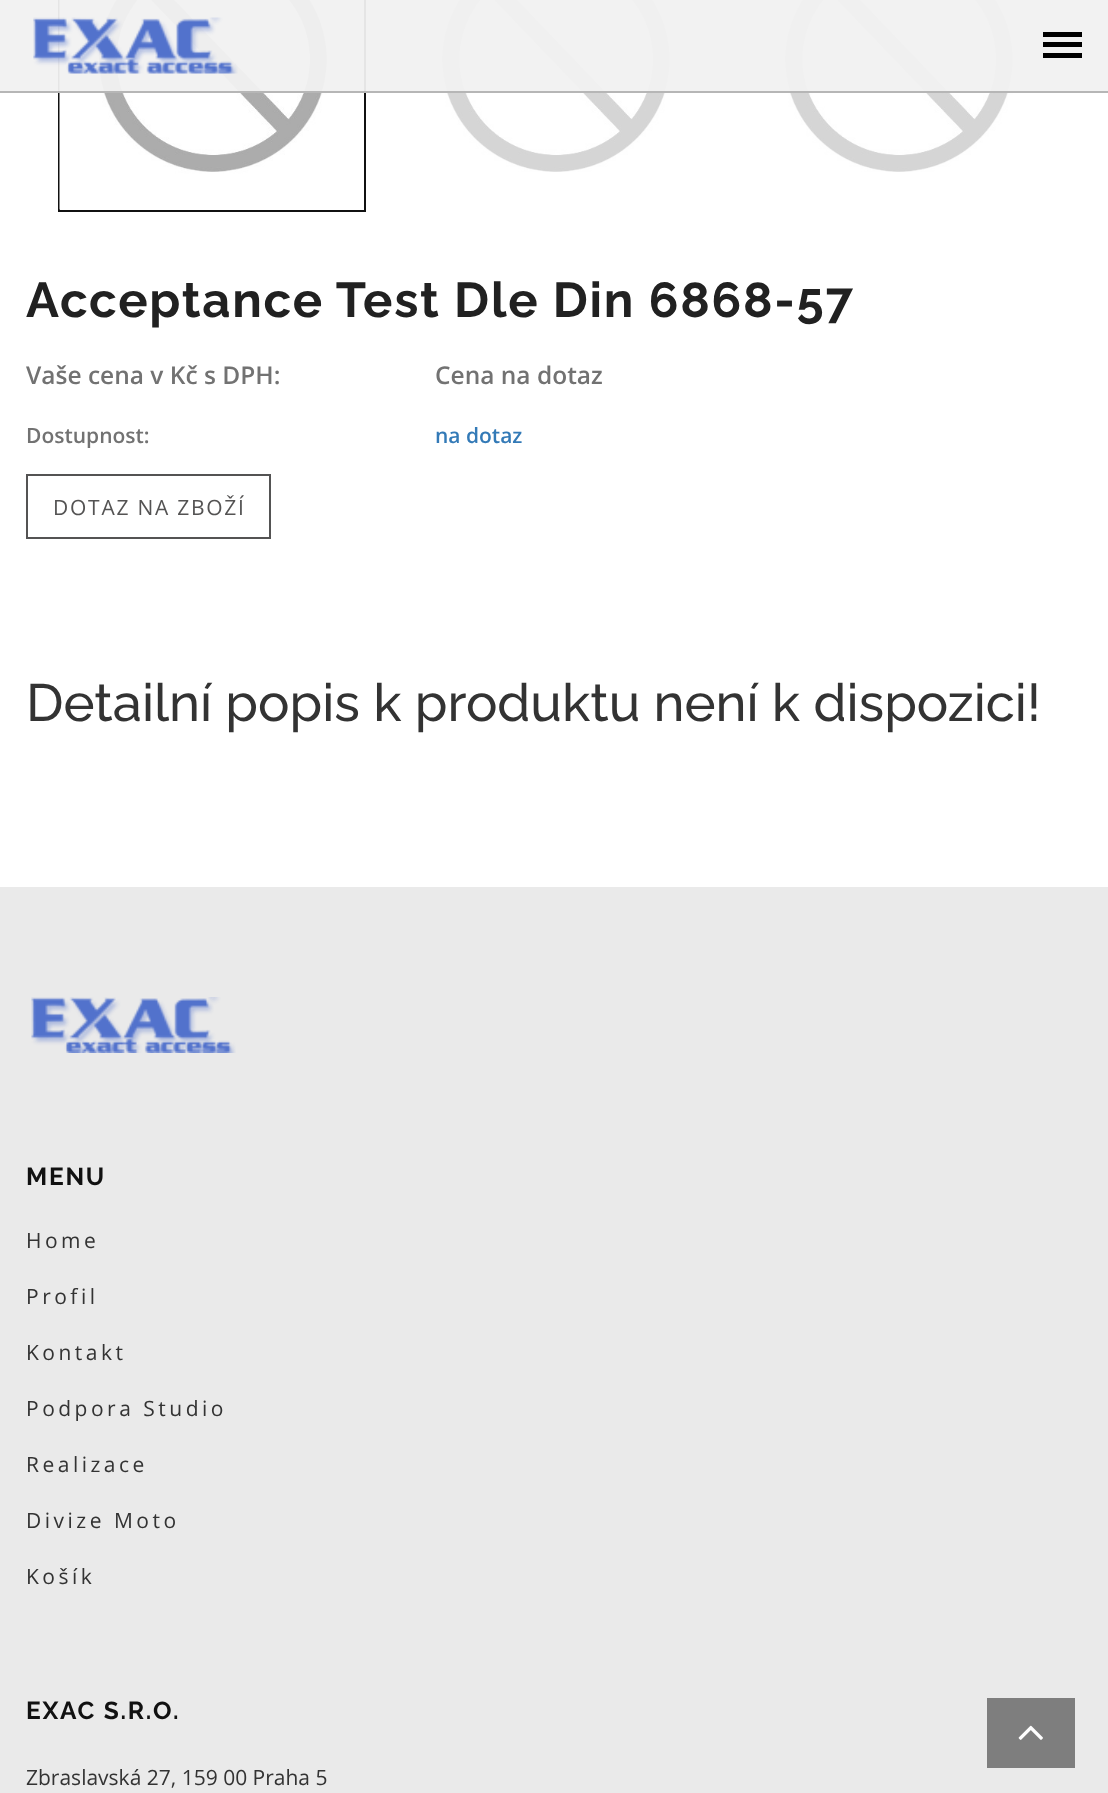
<?xml version="1.0" encoding="UTF-8"?>
<svg xmlns="http://www.w3.org/2000/svg" width="1108" height="1793">
    <rect width="100%" height="100%" fill="#FFFFFF"/>
    <rect x="59" y="-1" width="306" height="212" fill="none" stroke="#111111" stroke-width="2"/>
    <image x="59" y="0" width="268" height="210" href="img_02.png"/>
    <image x="442" y="0" width="228" height="172" href="img_03.png"/>
    <image x="785" y="0" width="228" height="172" href="img_03.png"/>
    <rect x="0" y="91" width="1108" height="2" fill="#B6B6B6"/>
    <rect x="0" y="0" width="1108" height="91" fill="#F1F1F1" fill-opacity="0.95"/>
    <image x="33" y="17" width="205" height="57" href="img_01.png"/>
    <rect x="1043" y="32" width="39" height="5" fill="#000000"/>
    <rect x="1043" y="42" width="39" height="5" fill="#000000"/>
    <rect x="1043" y="53" width="39" height="5" fill="#000000"/>
    <text x="26" y="317" font-family="Raleway" font-size="49" font-weight="700" letter-spacing="1.75" fill="#212121">Acceptance Test Dle Din 6868-57</text>
    <text x="26" y="384" font-family="Open Sans" font-size="24.5" font-weight="600" fill="#727272">Vaše cena v Kč s DPH:</text>
    <text x="435" y="384" font-family="Open Sans" font-size="24.5" font-weight="600" fill="#727272">Cena na dotaz</text>
    <text x="26" y="443" font-family="Open Sans" font-size="21" font-weight="600" fill="#727272">Dostupnost:</text>
    <text x="435" y="443" font-family="Open Sans" font-size="21" font-weight="600" fill="#337AB7">na dotaz</text>
    <rect x="27" y="475" width="243" height="63" fill="none" stroke="#545353" stroke-width="2"/>
    <text x="53" y="515" font-family="Open Sans" font-size="21" letter-spacing="1.75" fill="#545353">DOTAZ NA ZBOŽÍ</text>
    <text x="26" y="721" font-family="Raleway" font-size="52.5" font-weight="500" fill="#333333">Detailní popis k produktu není k dispozici!</text>
    <rect x="0" y="887" width="1108" height="906" fill="#EAEAEA"/>
    <image x="31" y="997" width="205" height="56" href="img_04.png"/>
    <text x="26" y="1185" font-family="Raleway" font-size="24.5" font-weight="700" letter-spacing="1.75" fill="#111111">MENU</text>
    <text x="26" y="1248" font-family="Open Sans" font-size="21" letter-spacing="3.5" fill="#333333">Home</text>
    <text x="26" y="1304" font-family="Open Sans" font-size="21" letter-spacing="3.5" fill="#333333">Profil</text>
    <text x="26" y="1360" font-family="Open Sans" font-size="21" letter-spacing="3.5" fill="#333333">Kontakt</text>
    <text x="26" y="1416" font-family="Open Sans" font-size="21" letter-spacing="3.5" fill="#333333">Podpora Studio</text>
    <text x="26" y="1472" font-family="Open Sans" font-size="21" letter-spacing="3.5" fill="#333333">Realizace</text>
    <text x="26" y="1528" font-family="Open Sans" font-size="21" letter-spacing="3.5" fill="#333333">Divize Moto</text>
    <text x="26" y="1584" font-family="Open Sans" font-size="21" letter-spacing="3.5" fill="#333333">Košík</text>
    <text x="26" y="1719" font-family="Raleway" font-size="24.5" font-weight="700" letter-spacing="1.75" fill="#111111">EXAC S.R.O.</text>
    <text x="26" y="1785" font-family="Open Sans" font-size="21" fill="#333333">Zbraslavská 27, 159 00 Praha 5</text>
    <rect x="987" y="1698" width="88" height="70" fill="#7E7E7E"/>
    <image x="1018" y="1725" width="25" height="15" href="img_05.png"/>
</svg>
